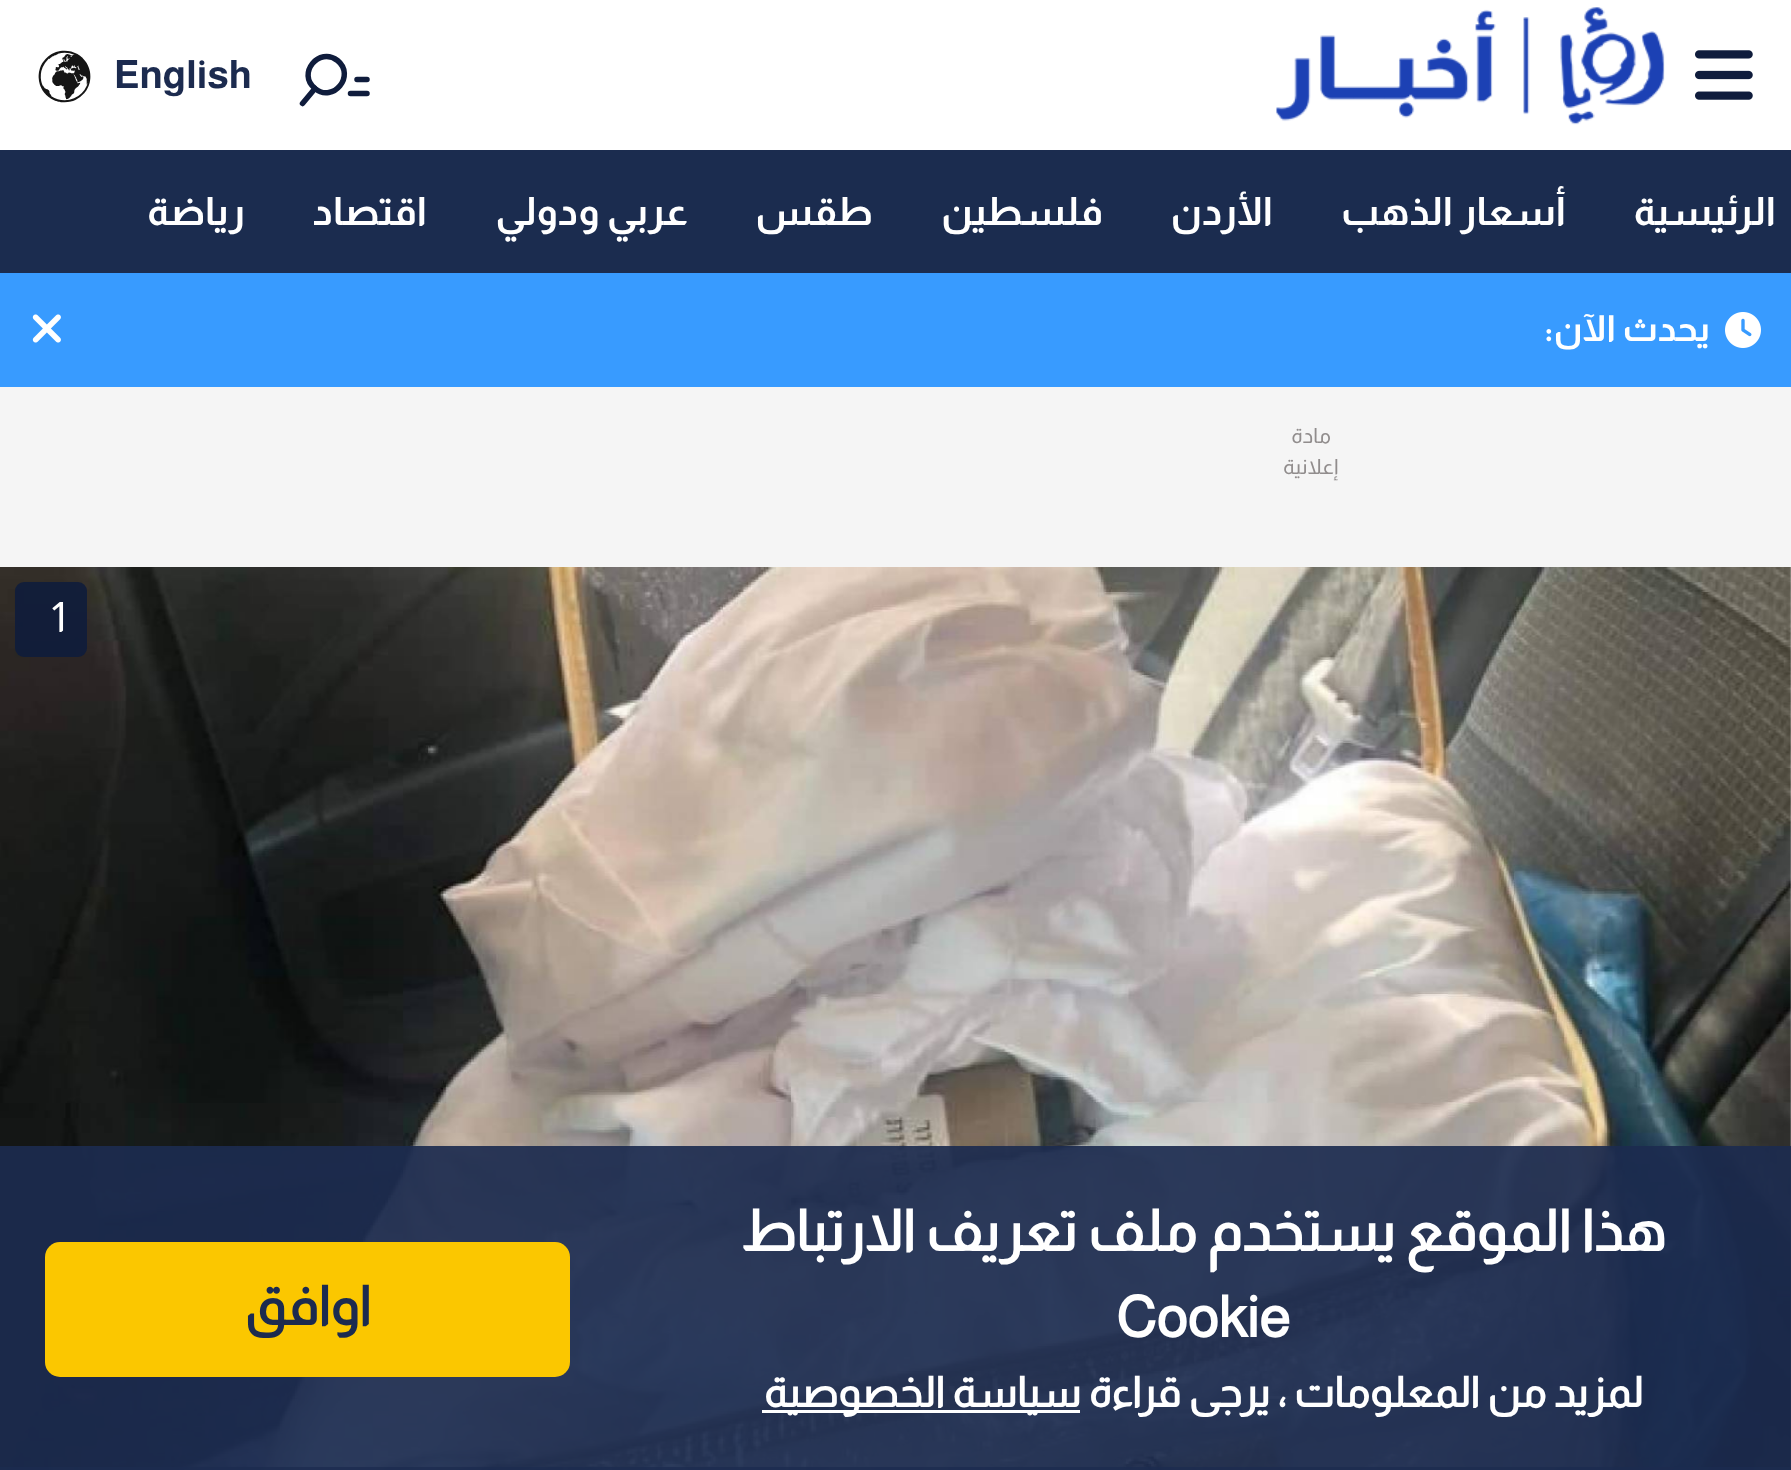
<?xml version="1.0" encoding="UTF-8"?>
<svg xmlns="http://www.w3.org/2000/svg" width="1791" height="1470">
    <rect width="100%" height="100%" fill="#F5F5F5"/>
    <rect x="0" y="0" width="1791" height="150" fill="#FFFFFF"/>
    <image x="1695" y="50" width="58" height="50" href="img_01.png"/>
    <image x="1276" y="7" width="389" height="118" href="img_02.png"/>
    <path d="M 337.5 60.5 C 356 75.5 333 103.5 315 88.5 C 296.5 74 319 46 337.5 60.5 Z" fill="none" stroke="#0F1C3C" stroke-width="5.5"/>
    <path d="M 315 88.5 L 302.5 103.5" fill="none" stroke="#0F1C3C" stroke-width="5.5" stroke-linecap="round"/>
    <path d="M 350.5 93.5 H 367 M 357 79.5 H 367" fill="none" stroke="#0F1C3C" stroke-width="5.5" stroke-linecap="round"/>
    <text x="114" y="88" font-family="Almarai" font-size="39" font-weight="700" fill="#1C2B4F">English</text>
    <image x="38" y="50" width="53" height="53" href="img_03.png"/>
    <rect x="0" y="150" width="1791" height="123" fill="#1B2C4F"/>
    <text x="1776" y="225" font-family="Almarai" font-size="39" font-weight="700" direction="rtl" fill="#FFFFFF">الرئيسية</text>
    <text x="1566" y="225" font-family="Almarai" font-size="39" font-weight="700" direction="rtl" fill="#FFFFFF">أسعار الذهب</text>
    <text x="1273" y="225" font-family="Almarai" font-size="39" font-weight="700" direction="rtl" fill="#FFFFFF">الأردن</text>
    <text x="1103" y="225" font-family="Almarai" font-size="39" font-weight="700" direction="rtl" fill="#FFFFFF">فلسطين</text>
    <text x="873" y="225" font-family="Almarai" font-size="39" font-weight="700" direction="rtl" fill="#FFFFFF">طقس</text>
    <text x="688" y="225" font-family="Almarai" font-size="39" font-weight="700" direction="rtl" fill="#FFFFFF">عربي ودولي</text>
    <text x="427" y="225" font-family="Almarai" font-size="39" font-weight="700" direction="rtl" fill="#FFFFFF">اقتصاد</text>
    <text x="245" y="225" font-family="Almarai" font-size="39" font-weight="700" direction="rtl" fill="#FFFFFF">رياضة</text>
    <rect x="0" y="273" width="1791" height="114" fill="#389BFF"/>
    <image x="1725" y="312" width="36" height="36" href="img_04.png"/>
    <text x="1710" y="341" font-family="Almarai" font-size="36" font-weight="700" direction="rtl" fill="#FFFFFF">يحدث الآن:</text>
    <image x="32" y="314" width="29" height="29" href="img_05.png"/>
    <image x="0" y="567" width="1791" height="903" href="img_06.png"/>
    <rect x="0" y="1467" width="1791" height="3" fill="#1C2B4F" fill-opacity="0.78"/>
    <rect x="0" y="1146" width="1791" height="324" fill="#1C2B4F" fill-opacity="0.92"/>
    <text x="1666" y="1251" font-family="'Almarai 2'" font-size="57" font-weight="700" direction="rtl" fill="#FFFFFF">هذا الموقع يستخدم ملف تعريف الارتباط</text>
    <text x="1116" y="1337" font-family="'Almarai 2'" font-size="57" font-weight="700" fill="#FFFFFF">Cookie</text>
    <text x="1643" y="1407" font-family="'Almarai 2'" font-size="42" font-weight="700" direction="rtl" fill="#FFFFFF">لمزيد من المعلومات ، يرجى قراءة</text>
    <rect x="762" y="1410" width="318" height="3" fill="#FFFFFF"/>
    <text x="1081" y="1407" font-family="'Almarai 2'" font-size="42" font-weight="700" direction="rtl" fill="#FFFFFF">سياسة الخصوصية</text>
    <rect x="45" y="1242" width="525" height="135" rx="15" fill="#FBC700"/>
    <text x="371" y="1325" font-family="'Almarai 2'" font-size="54" font-weight="700" direction="rtl" fill="#1C2B4F">اوافق</text>
    <text x="1331" y="443" font-family="Almarai" font-size="21" direction="rtl" fill="#918D8D">مادة</text>
    <text x="1338" y="474" font-family="Almarai" font-size="21" direction="rtl" fill="#918D8D">إعلانية</text>
    <rect x="15" y="582" width="72" height="75" rx="9" fill="#0F1C3C" fill-opacity="0.89"/>
    <text x="51" y="632" font-family="Almarai" font-size="42" fill="#FFFFFF">1</text>
</svg>
